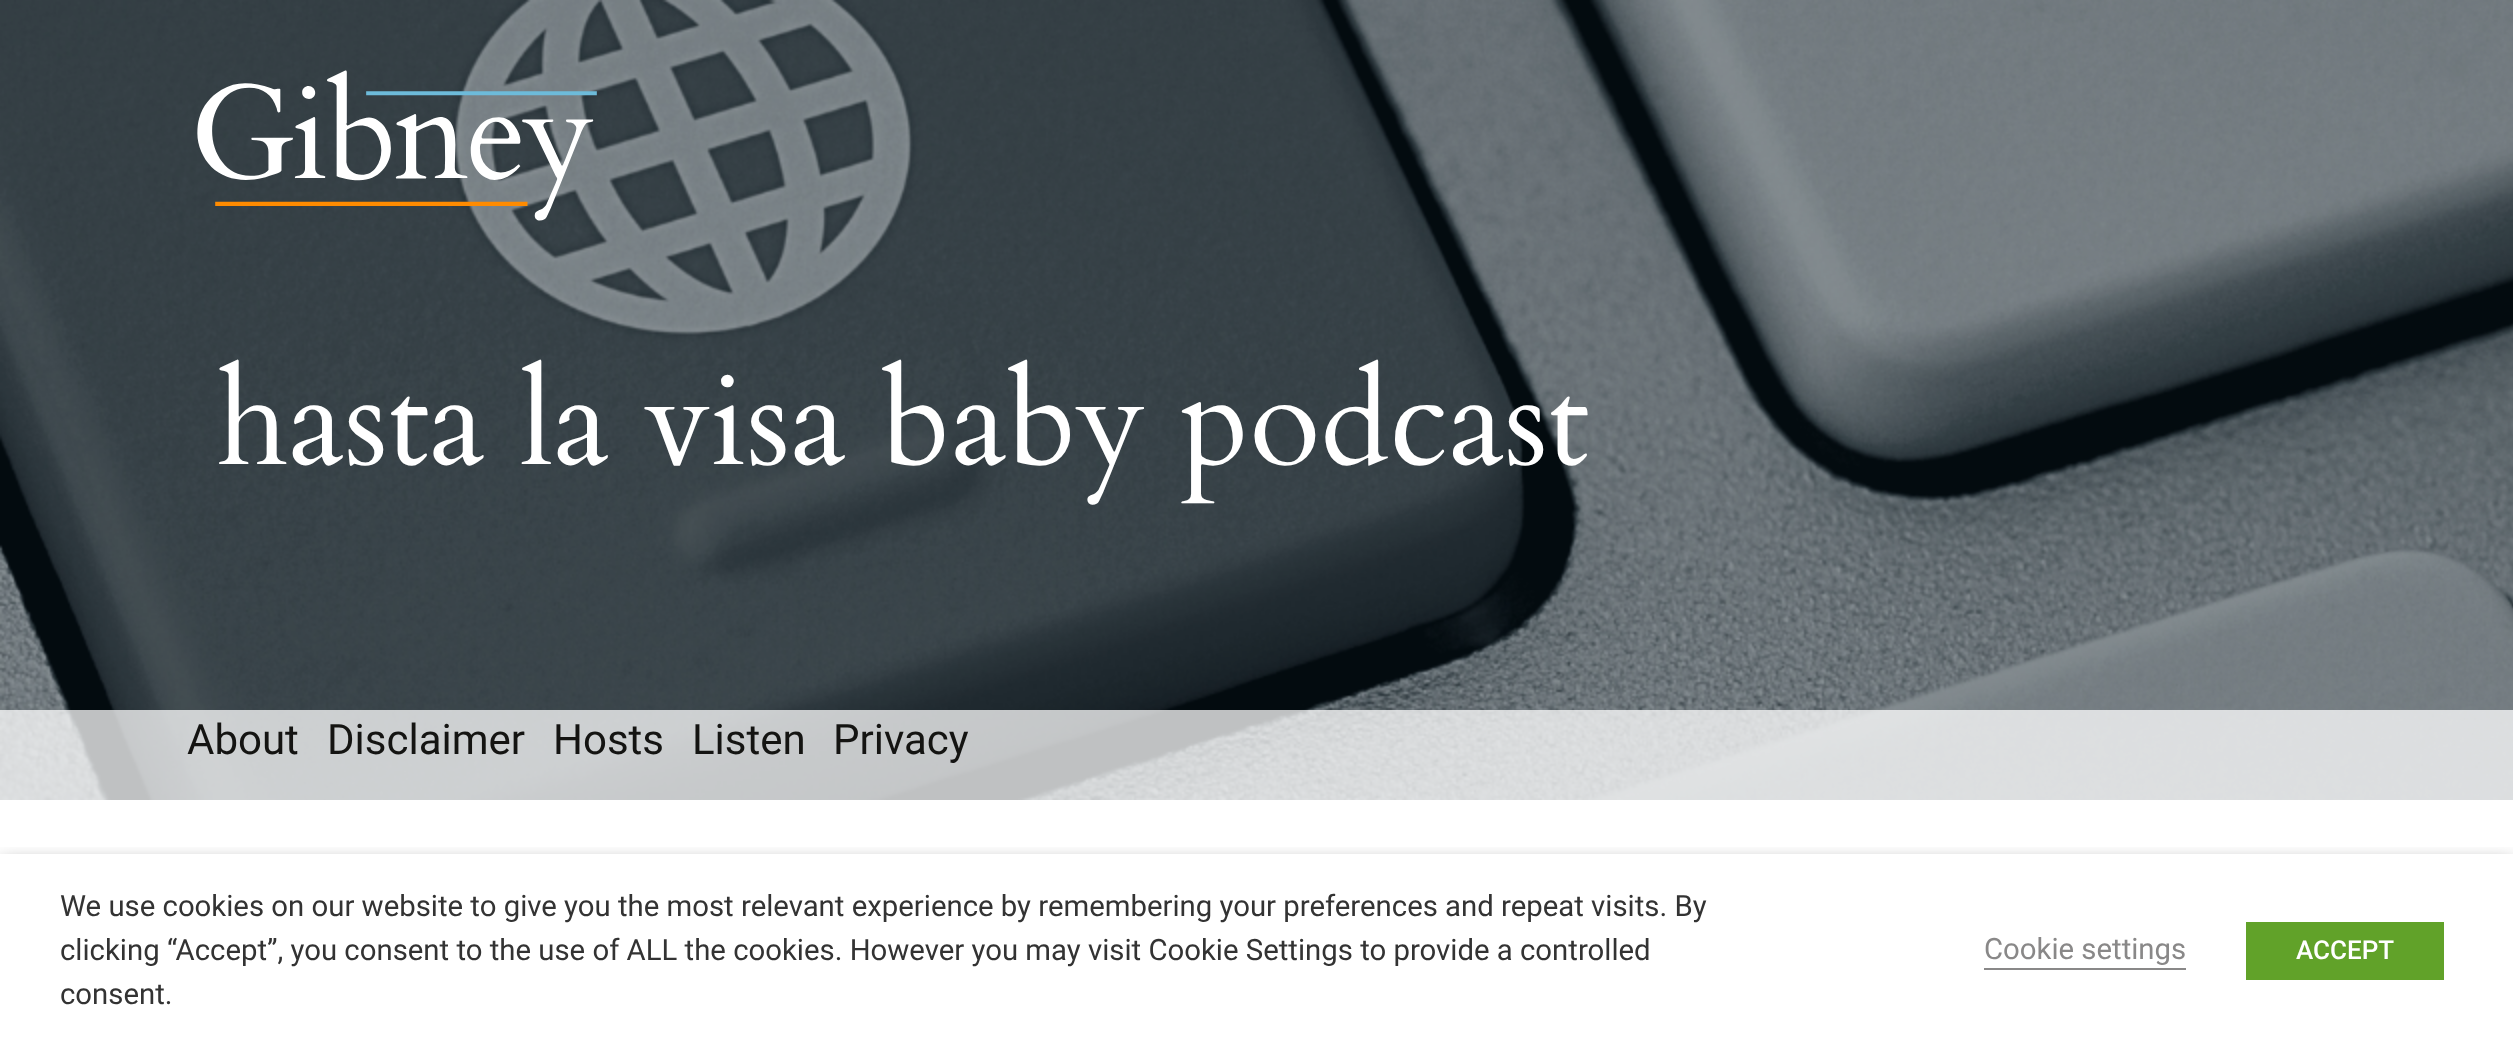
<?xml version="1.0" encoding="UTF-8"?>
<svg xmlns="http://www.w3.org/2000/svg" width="2513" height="1045">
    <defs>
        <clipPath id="clip1"><rect x="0" y="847" width="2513" height="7"/></clipPath>
        <filter id="blur1" x="-50%" y="-200%" width="200%" height="500%"><feGaussianBlur stdDeviation="10"/></filter>
    </defs>
    <rect width="100%" height="100%" fill="#FFFFFF"/>
    <image x="0" y="0" width="2513" height="800" href="img_01.png"/>
    <image x="197" y="70" width="400" height="151" href="img_02.png"/>
    <text x="217" y="464" font-family="Cardo" font-size="130" fill="#FFFFFF">hasta la visa baby podcast</text>
    <rect x="0" y="710" width="2513" height="90" fill="#FFFFFF" fill-opacity="0.75"/>
    <text x="187" y="754" font-family="Roboto" font-size="42" fill="#141412">About</text>
    <text x="327" y="754" font-family="Roboto" font-size="42" fill="#141412">Disclaimer</text>
    <text x="553" y="754" font-family="Roboto" font-size="42" fill="#141412">Hosts</text>
    <text x="692" y="754" font-family="Roboto" font-size="42" fill="#141412">Listen</text>
    <text x="833" y="754" font-family="Roboto" font-size="42" fill="#141412">Privacy</text>
    <g clip-path="url(#clip1)">
        <rect x="0" y="864" width="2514" height="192" fill="#000000" fill-opacity="0.5" filter="url(#blur1)"/>
    </g>
    <text font-family="Roboto" font-size="29.33" fill="#333333">
        <tspan x="60" y="916">We use cookies on our website to give you the most relevant experience by remembering your preferences and repeat visits. By</tspan>
        <tspan x="60" y="960">clicking “Accept”, you consent to the use of ALL the cookies. However you may visit Cookie Settings to provide a controlled</tspan>
        <tspan x="60" y="1004">consent.</tspan>
    </text>
    <text x="1984" y="959" font-family="Roboto" font-size="29.33" fill="#898888">Cookie settings</text>
    <rect x="1984" y="968" width="202" height="2" fill="#898888"/>
    <rect x="2246" y="922" width="198" height="58" fill="#61A229"/>
    <text x="2296" y="959" font-family="Roboto" font-size="26" font-weight="500" fill="#FFFFFF">ACCEPT</text>
</svg>
